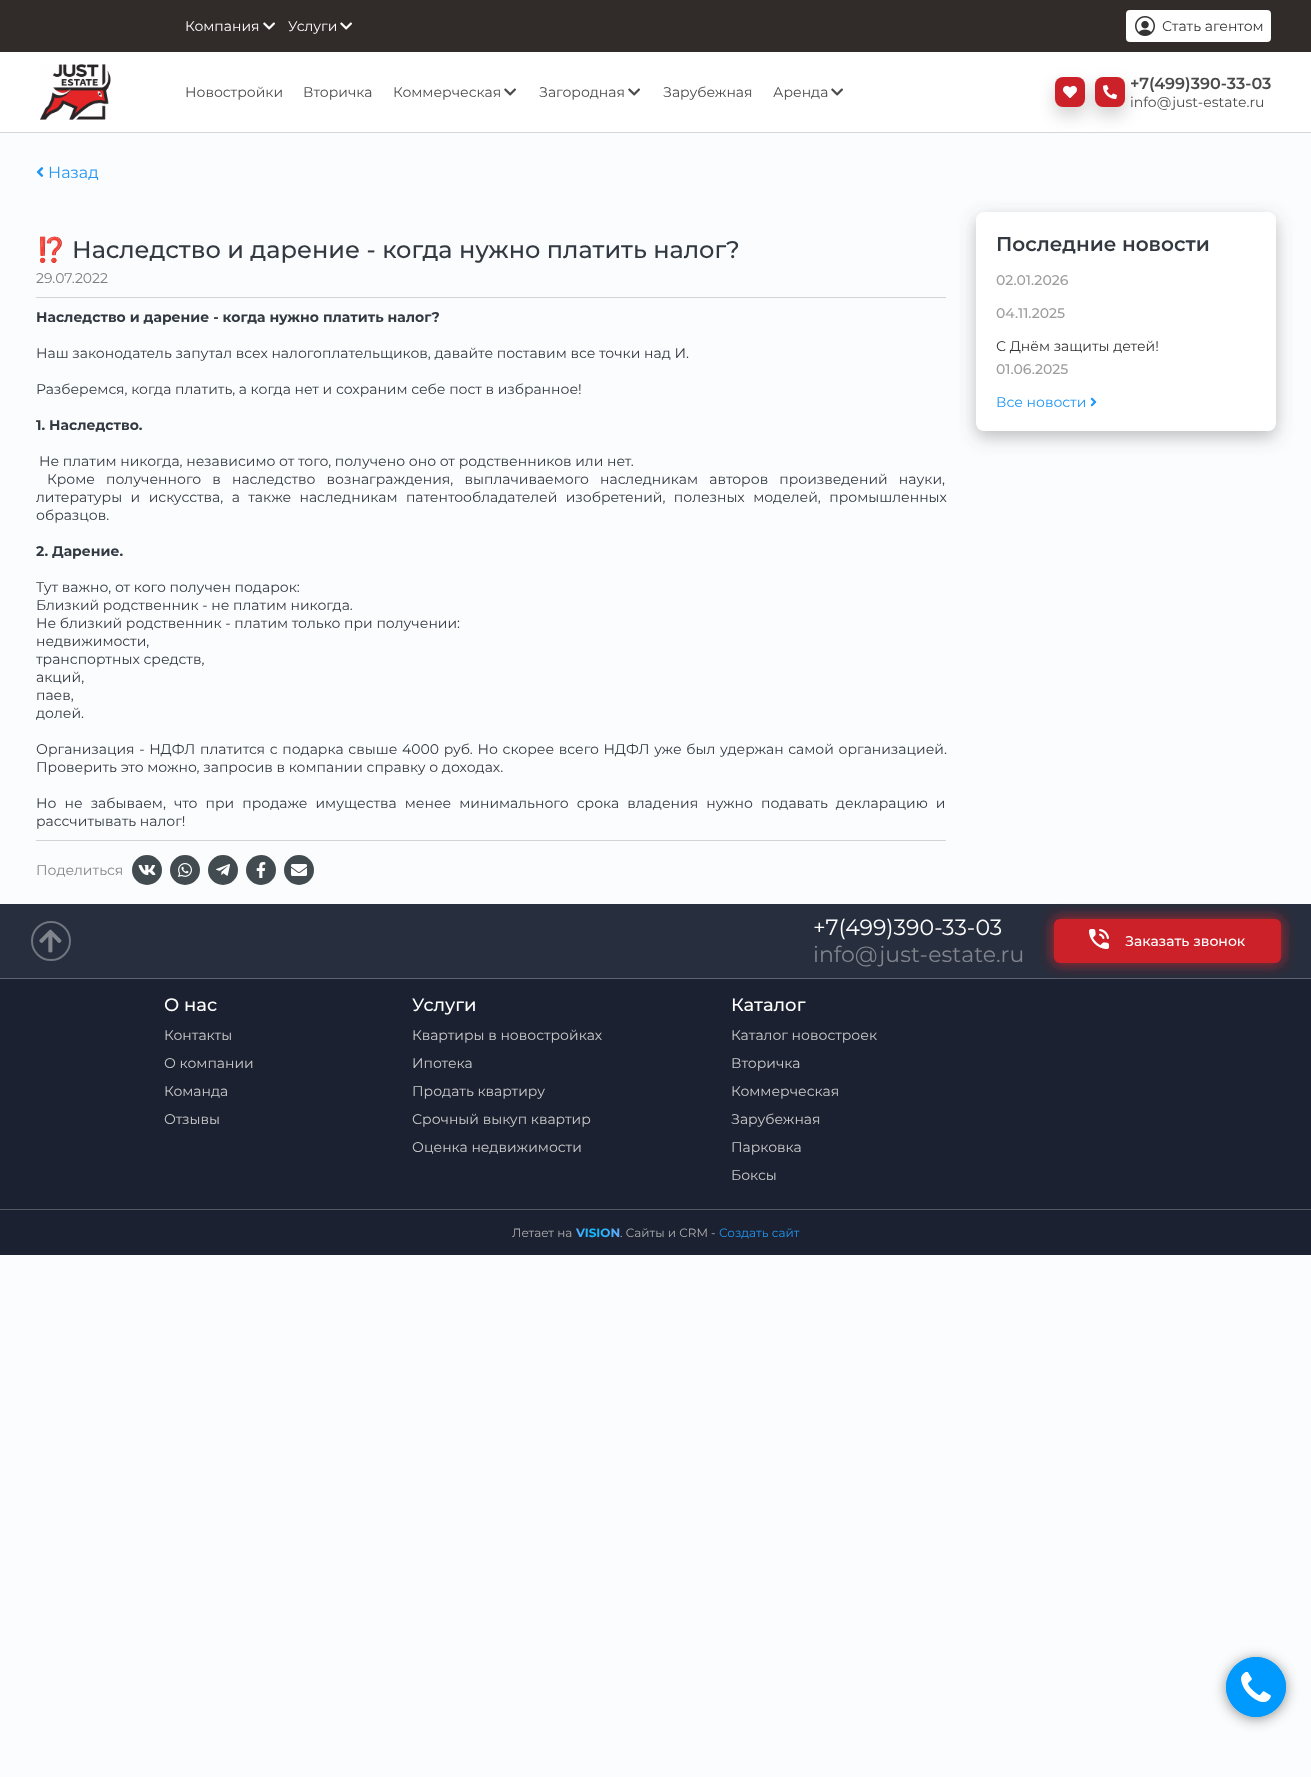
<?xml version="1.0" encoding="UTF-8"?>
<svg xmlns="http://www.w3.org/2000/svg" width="1311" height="1777">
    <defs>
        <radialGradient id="g1" gradientUnits="userSpaceOnUse" cx="0" cy="0" r="1" gradientTransform="matrix(24 0 0 883 595 1234)"><stop offset="0" stop-color="#07BAFF"/><stop offset="1" stop-color="#66A9FB"/></radialGradient>
        <filter id="blur1" x="-50%" y="-200%" width="200%" height="500%"><feGaussianBlur stdDeviation="8.5"/></filter>
        <filter id="blur2" x="-50%" y="-200%" width="200%" height="500%"><feGaussianBlur stdDeviation="6.5"/></filter>
        <filter id="blur3" x="-50%" y="-200%" width="200%" height="500%"><feGaussianBlur stdDeviation="7"/></filter>
        <filter id="blur4" x="-50%" y="-200%" width="200%" height="500%"><feGaussianBlur stdDeviation="3.5"/></filter>
        <clipPath id="clip1"><path d="M 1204 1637 H 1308 V 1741 H 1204 Z M 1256 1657 C 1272.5 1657 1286 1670.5 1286 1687 C 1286 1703.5 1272.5 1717 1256 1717 C 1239.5 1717 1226 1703.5 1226 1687 C 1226 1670.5 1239.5 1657 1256 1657 Z" clip-rule="evenodd"/></clipPath>
    </defs>
    <rect width="100%" height="100%" fill="#FBFCFD"/>
    <rect x="0" y="52" width="1311" height="80" fill="#FFFFFF"/>
    <rect x="0" y="0" width="1311" height="52" fill="#312B29"/>
    <text x="185" y="31" font-family="Montserrat" font-size="14" fill="#FFFFFF">Компания</text>
    <image x="263" y="22" width="12" height="8" href="img_01.png"/>
    <text x="288" y="31" font-family="Montserrat" font-size="14" fill="#FFFFFF">Услуги</text>
    <image x="340" y="22" width="12" height="8" href="img_01.png"/>
    <rect x="1126" y="10" width="145" height="32" rx="4" fill="#FFFFFF"/>
    <image x="1135" y="16" width="20" height="20" href="img_02.png"/>
    <text x="1162" y="31" font-family="Montserrat" font-size="14" fill="#333333">Стать агентом</text>
    <rect x="0" y="132" width="1311" height="1" fill="#D6D6D6"/>
    <image x="40" y="64" width="71" height="56" href="img_03.png"/>
    <text x="185" y="97" font-family="Montserrat" font-size="14" fill="#4A4A4A">Новостройки</text>
    <text x="303" y="97" font-family="Montserrat" font-size="14" fill="#4A4A4A">Вторичка</text>
    <text x="393" y="97" font-family="Montserrat" font-size="14" fill="#4A4A4A">Коммерческая</text>
    <image x="504" y="88" width="12" height="8" href="img_04.png"/>
    <text x="539" y="97" font-family="Montserrat" font-size="14" fill="#4A4A4A">Загородная</text>
    <image x="628" y="88" width="12" height="8" href="img_04.png"/>
    <text x="663" y="97" font-family="Montserrat" font-size="14" fill="#4A4A4A">Зарубежная</text>
    <text x="773" y="97" font-family="Montserrat" font-size="14" fill="#4A4A4A">Аренда</text>
    <image x="831" y="88" width="12" height="8" href="img_04.png"/>
    <rect x="1055" y="85" width="30" height="30" rx="8" fill="#000000" fill-opacity="0.19" filter="url(#blur1)"/>
    <rect x="1055" y="77" width="30" height="30" rx="8" fill="#CC2128"/>
    <rect x="1095" y="85" width="30" height="30" rx="8" fill="#000000" fill-opacity="0.19" filter="url(#blur1)"/>
    <image x="1063" y="85" width="14" height="13" href="img_05.png"/>
    <rect x="1095" y="77" width="30" height="30" rx="8" fill="#CC2128"/>
    <image x="1103" y="85" width="14" height="14" href="img_06.png"/>
    <text x="1130" y="89" font-family="Montserrat" font-size="16" font-weight="600" fill="#4A4A4A">+7(499)390-33-03</text>
    <text x="1130" y="107" font-family="Montserrat" font-size="14" fill="#4A4A4A">info@just-estate.ru</text>
    <image x="36" y="167" width="8" height="10" href="img_07.png"/>
    <text x="48" y="178" font-family="Montserrat" font-size="16" fill="#2196F3">Назад</text>
    <text x="36" y="258" font-family="Noto Color Emoji" font-size="24" fill="#323941">⁉️</text>
    <text x="72" y="258" font-family="Montserrat" font-size="24" font-weight="500" fill="#323941">Наследство и дарение - когда нужно платить налог?</text>
    <text x="36" y="283" font-family="Montserrat" font-size="14" fill="#7D7D7E">29.07.2022</text>
    <rect x="36" y="297" width="910" height="1" fill="#D3D4D5"/>
    <text x="36" y="322" font-family="Montserrat" font-size="14" font-weight="700" fill="#323941">Наследство и дарение - когда нужно платить налог?</text>
    <text x="36" y="358" font-family="Montserrat" font-size="14" fill="#323941">Наш законодатель запутал всех налогоплательщиков, давайте поставим все точки над И.</text>
    <text x="36" y="394" font-family="Montserrat" font-size="14" fill="#323941">Разберемся, когда платить, а когда нет и сохраним себе пост в избранное!</text>
    <text x="36" y="430" font-family="Montserrat" font-size="14" font-weight="700" fill="#323941">1. Наследство.</text>
    <text x="39" y="466" font-family="Montserrat" font-size="14" fill="#323941">Не платим никогда, независимо от того, получено оно от родственников или нет.</text>
    <text x="47" y="484" word-spacing="7.5" font-family="Montserrat" font-size="14" fill="#323941">Кроме полученного в наследство вознаграждения, выплачиваемого наследникам авторов произведений науки,</text>
    <text font-family="Montserrat" font-size="14" fill="#323941">
        <tspan x="36" y="502" word-spacing="4.75">литературы и искусства, а также наследникам патентообладателей изобретений, полезных моделей, промышленных</tspan>
        <tspan x="36" y="520">образцов.</tspan>
    </text>
    <text x="36" y="556" font-family="Montserrat" font-size="14" font-weight="700" fill="#323941">2. Дарение.</text>
    <text font-family="Montserrat" font-size="14" fill="#323941">
        <tspan x="36" y="592">Тут важно, от кого получен подарок:</tspan>
        <tspan x="36" y="610">Близкий родственник - не платим никогда.</tspan>
        <tspan x="36" y="628">Не близкий родственник - платим только при получении:</tspan>
        <tspan x="36" y="646">недвижимости,</tspan>
        <tspan x="36" y="664">транспортных средств,</tspan>
        <tspan x="36" y="682">акций,</tspan>
        <tspan x="36" y="700">паев,</tspan>
        <tspan x="36" y="718">долей.</tspan>
    </text>
    <text font-family="Montserrat" font-size="14" fill="#323941">
        <tspan x="36" y="754" word-spacing="1">Организация - НДФЛ платится с подарка свыше 4000 руб. Но скорее всего НДФЛ уже был удержан самой организацией.</tspan>
        <tspan x="36" y="772">Проверить это можно, запросив в компании справку о доходах.</tspan>
    </text>
    <text font-family="Montserrat" font-size="14" fill="#323941">
        <tspan x="36" y="808" word-spacing="4.4">Но не забываем, что при продаже имущества менее минимального срока владения нужно подавать декларацию и</tspan>
        <tspan x="36" y="826">рассчитывать налог!</tspan>
    </text>
    <rect x="36" y="840" width="910" height="1" fill="#D3D4D5"/>
    <text x="36" y="875" font-family="Montserrat" font-size="14" fill="#868686">Поделиться</text>
    <circle cx="147" cy="870" r="15" fill="#424B4F"/>
    <image x="138" y="865" width="18" height="10" href="img_08.png"/>
    <circle cx="185" cy="870" r="15" fill="#424B4F"/>
    <image x="178" y="863" width="14" height="14" href="img_09.png"/>
    <circle cx="223" cy="870" r="15" fill="#424B4F"/>
    <image x="216" y="864" width="14" height="12" href="img_10.png"/>
    <circle cx="261" cy="870" r="15" fill="#424B4F"/>
    <image x="256" y="862" width="10" height="16" href="img_11.png"/>
    <circle cx="299" cy="870" r="15" fill="#424B4F"/>
    <image x="291" y="864" width="16" height="12" href="img_12.png"/>
    <rect x="976" y="218" width="300" height="219" rx="8" fill="#585858" fill-opacity="0.38" filter="url(#blur1)"/>
    <rect x="976" y="212" width="300" height="219" rx="8" fill="#FFFFFF"/>
    <text x="996" y="251" font-family="Montserrat" font-size="20" font-weight="600" fill="#323941">Последние новости</text>
    <text x="996" y="285" font-family="Montserrat" font-size="14" font-weight="500" fill="#9D9D9D">02.01.2026</text>
    <text x="996" y="318" font-family="Montserrat" font-size="14" font-weight="500" fill="#9D9D9D">04.11.2025</text>
    <text x="996" y="351" font-family="Montserrat" font-size="14" fill="#333333">С Днём защиты детей!</text>
    <text x="996" y="374" font-family="Montserrat" font-size="14" font-weight="500" fill="#9D9D9D">01.06.2025</text>
    <text x="996" y="407" font-family="Montserrat" font-size="14" fill="#2196F3">Все новости</text>
    <image x="1090" y="397" width="7" height="10" href="img_13.png"/>
    <rect x="0" y="904" width="1311" height="74" fill="#272E3D"/>
    <rect x="0" y="978" width="1311" height="1" fill="#5D626E"/>
    <circle cx="51" cy="941" r="19" fill="none" stroke="#70757F" stroke-width="2"/>
    <image x="39" y="929" width="23" height="24" href="img_14.png"/>
    <text x="813" y="935" font-family="Montserrat" font-size="22" fill="#FFFFFF">+7(499)390-33-03</text>
    <text x="813" y="962" font-family="Montserrat" font-size="22" fill="#80848D">info@just-estate.ru</text>
    <rect x="1052" y="917" width="231" height="48" rx="8" fill="#CC2128" fill-opacity="0.71" filter="url(#blur2)"/>
    <rect x="1054" y="919" width="227" height="44" rx="6" fill="#CC2128"/>
    <image x="1089" y="929" width="20" height="20" href="img_15.png"/>
    <text x="1125" y="946" font-family="Montserrat" font-size="14" font-weight="500" fill="#FFFFFF">Заказать звонок</text>
    <rect x="0" y="979" width="1311" height="230" fill="#1B2130"/>
    <rect x="0" y="1209" width="1311" height="1" fill="#545964"/>
    <text x="164" y="1011" font-family="Montserrat" font-size="18" font-weight="500" fill="#FFFFFF">О нас</text>
    <text x="164" y="1040" font-family="Montserrat" font-size="14" fill="#CBCBCB">Контакты</text>
    <text x="164" y="1068" font-family="Montserrat" font-size="14" fill="#CBCBCB">О компании</text>
    <text x="164" y="1096" font-family="Montserrat" font-size="14" fill="#CBCBCB">Команда</text>
    <text x="164" y="1124" font-family="Montserrat" font-size="14" fill="#CBCBCB">Отзывы</text>
    <text x="412" y="1011" font-family="Montserrat" font-size="18" font-weight="500" fill="#FFFFFF">Услуги</text>
    <text x="412" y="1040" font-family="Montserrat" font-size="14" fill="#CBCBCB">Квартиры в новостройках</text>
    <text x="412" y="1068" font-family="Montserrat" font-size="14" fill="#CBCBCB">Ипотека</text>
    <text x="412" y="1096" font-family="Montserrat" font-size="14" fill="#CBCBCB">Продать квартиру</text>
    <text x="412" y="1124" font-family="Montserrat" font-size="14" fill="#CBCBCB">Срочный выкуп квартир</text>
    <text x="412" y="1152" font-family="Montserrat" font-size="14" fill="#CBCBCB">Оценка недвижимости</text>
    <text x="731" y="1011" font-family="Montserrat" font-size="18" font-weight="500" fill="#FFFFFF">Каталог</text>
    <text x="731" y="1040" font-family="Montserrat" font-size="14" fill="#CBCBCB">Каталог новостроек</text>
    <text x="731" y="1068" font-family="Montserrat" font-size="14" fill="#CBCBCB">Вторичка</text>
    <text x="731" y="1096" font-family="Montserrat" font-size="14" fill="#CBCBCB">Коммерческая</text>
    <text x="731" y="1124" font-family="Montserrat" font-size="14" fill="#CBCBCB">Зарубежная</text>
    <text x="731" y="1152" font-family="Montserrat" font-size="14" fill="#CBCBCB">Парковка</text>
    <text x="731" y="1180" font-family="Montserrat" font-size="14" fill="#CBCBCB">Боксы</text>
    <rect x="0" y="1210" width="1311" height="45" fill="#1B2130"/>
    <text x="512" y="1237" font-family="Montserrat" font-size="12" fill="#AFAFAF">Летает на</text>
    <text x="576" y="1237" font-family="Montserrat" font-size="12" font-weight="700" fill="url(#g1)">VISION</text>
    <text x="620" y="1237" font-family="Montserrat" font-size="12" fill="#AFAFAF">. Cайты и CRM -</text>
    <text x="719" y="1237" font-family="Montserrat" font-size="12" fill="#2196F3">Создать сайт</text>
    <rect x="1226" y="1659" width="60" height="60" rx="30" fill="#000000" fill-opacity="0.19" filter="url(#blur3)"/>
    <rect x="1226" y="1658" width="60" height="60" rx="30" fill="#000000" fill-opacity="0.09" filter="url(#blur4)"/>
    <circle cx="1256" cy="1687" r="29.5" fill="#0099FE" stroke="#0099FE"/>
    <image x="1241" y="1672" width="30" height="30" href="img_16.png"/>
    <g clip-path="url(#clip1)">
        <rect x="1226" y="1659" width="60" height="60" rx="30" fill="#000000" fill-opacity="0.19" filter="url(#blur3)"/>
    </g>
    <circle cx="1256" cy="1687" r="29.5" fill="none" stroke="#0099FE"/>
</svg>
